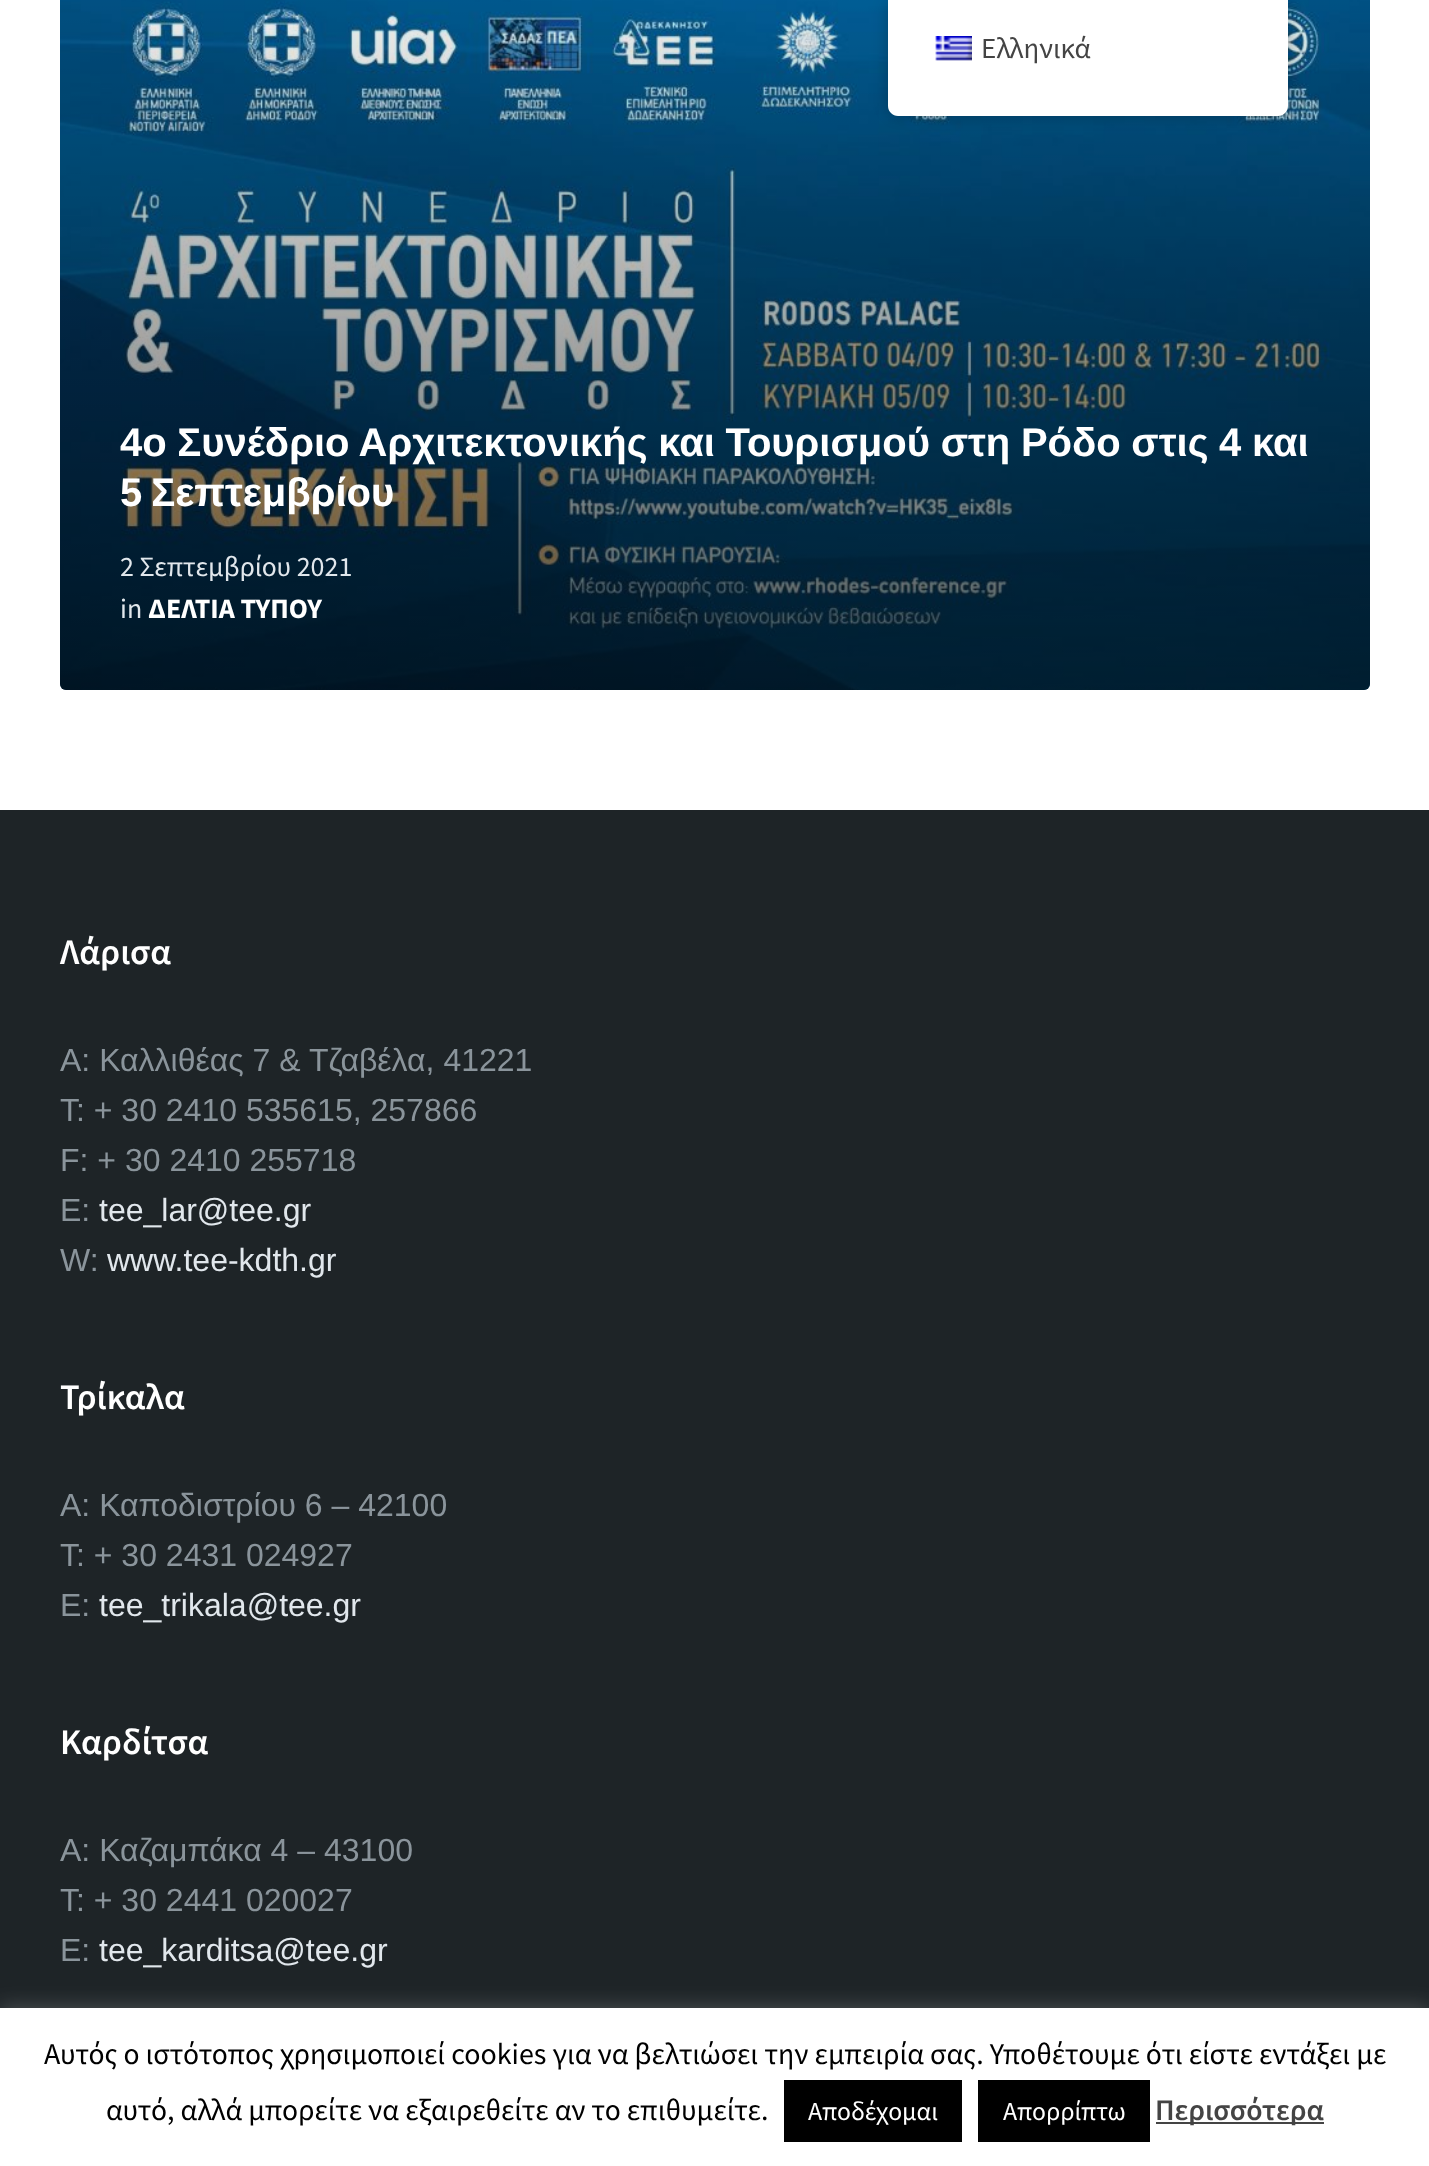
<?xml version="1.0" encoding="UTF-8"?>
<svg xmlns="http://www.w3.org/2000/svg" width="1429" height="2166">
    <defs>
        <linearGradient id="g1" gradientUnits="userSpaceOnUse" x1="715" y1="-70" x2="715" y2="690"><stop offset="0" stop-color="#000000" stop-opacity="0"/><stop offset="1" stop-color="#000000" stop-opacity="0.65"/></linearGradient>
        <filter id="blur1" x="-50%" y="-200%" width="200%" height="500%"><feGaussianBlur stdDeviation="8"/></filter>
        <filter id="blur2" x="-50%" y="-200%" width="200%" height="500%"><feGaussianBlur stdDeviation="10"/></filter>
    </defs>
    <rect width="100%" height="100%" fill="#FFFFFF"/>
    <image x="60" y="0" width="1310" height="690" href="img_02.png"/>
    <rect x="60" y="-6" width="1310" height="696" rx="6" fill="url(#g1)"/>
    <rect x="888" y="0" width="400" height="116" rx="10" fill="#000000" fill-opacity="0.25" filter="url(#blur1)"/>
    <path d="M 888 0 H 1288 V 106 C 1288 111.5 1283.5 116 1278 116 H 898 C 892.5 116 888 111.5 888 106 Z" fill="#FFFFFF"/>
    <image x="935" y="36" width="37" height="25" href="img_01.png"/>
    <text x="981" y="58" font-family="Source Sans Pro" font-size="29" fill="#444444">Ελληνικά</text>
    <text font-family="Liberation Sans" font-size="40" font-weight="700" fill="#FFFFFF">
        <tspan x="120" y="456" word-spacing="-0.5">4ο Συνέδριο Αρχιτεκτονικής και Τουρισμού στη Ρόδο στις 4 και</tspan>
        <tspan x="120" y="506" word-spacing="-2">5 Σεπτεμβρίου</tspan>
    </text>
    <text font-family="Source Sans Pro" font-size="28" fill="#E1E7EC">
        <tspan x="120" y="576">2 Σεπτεμβρίου 2021</tspan>
        <tspan x="120" y="618">in</tspan>
    </text>
    <text x="148" y="618" font-family="Source Sans Pro" font-size="28" font-weight="700" fill="#FFFFFF">ΔΕΛΤΙΑ ΤΥΠΟΥ</text>
    <rect x="0" y="810" width="1429" height="1198" fill="#1E2427"/>
    <text x="60" y="964" font-family="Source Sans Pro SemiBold" font-size="36" font-weight="600" fill="#FFFFFF">Λάρισα</text>
    <text font-family="Liberation Sans" font-size="32" fill="#8A949B">
        <tspan x="60" y="1071">A: Καλλιθέας 7 &amp; Τζαβέλα, 41221</tspan>
        <tspan x="60" y="1121">T: + 30 2410 535615, 257866</tspan>
        <tspan x="60" y="1171">F: + 30 2410 255718</tspan>
        <tspan x="60" y="1221">E:</tspan>
    </text>
    <text x="99" y="1221" font-family="Liberation Sans" font-size="32" fill="#E1E7EC">tee_lar@tee.gr</text>
    <text x="60" y="1271" font-family="Liberation Sans" font-size="32" fill="#8A949B">W:</text>
    <text x="107" y="1271" font-family="Liberation Sans" font-size="32" fill="#E1E7EC">www.tee-kdth.gr</text>
    <text x="60" y="1409" font-family="Source Sans Pro SemiBold" font-size="36" font-weight="600" fill="#FFFFFF">Τρίκαλα</text>
    <text font-family="Liberation Sans" font-size="32" fill="#8A949B">
        <tspan x="60" y="1516">Α: Καποδιστρίου 6 – 42100</tspan>
        <tspan x="60" y="1566">T: + 30 2431 024927</tspan>
        <tspan x="60" y="1616">E:</tspan>
    </text>
    <text x="99" y="1616" font-family="Liberation Sans" font-size="32" fill="#E1E7EC">tee_trikala@tee.gr</text>
    <text x="60" y="1754" font-family="Source Sans Pro SemiBold" font-size="36" font-weight="600" fill="#FFFFFF">Καρδίτσα</text>
    <text font-family="Liberation Sans" font-size="32" fill="#8A949B">
        <tspan x="60" y="1861">Α: Καζαμπάκα 4 – 43100</tspan>
        <tspan x="60" y="1911">T: + 30 2441 020027</tspan>
        <tspan x="60" y="1961">E:</tspan>
    </text>
    <text x="99" y="1961" font-family="Liberation Sans" font-size="32" fill="#E1E7EC">tee_karditsa@tee.gr</text>
    <rect x="0" y="2006" width="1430" height="158" fill="#ACABAB" fill-opacity="0.3" filter="url(#blur2)"/>
    <rect x="0" y="2008" width="1429" height="158" fill="#FFFFFF"/>
    <text x="44" y="2064" font-family="Source Sans Pro" font-size="30" fill="#000000">Αυτός ο ιστότοπος χρησιμοποιεί cookies για να βελτιώσει την εμπειρία σας. Υποθέτουμε ότι είστε εντάξει με</text>
    <text x="106" y="2120" font-family="Source Sans Pro" font-size="30" fill="#000000">αυτό, αλλά μπορείτε να εξαιρεθείτε αν το επιθυμείτε.</text>
    <rect x="784" y="2080" width="178" height="62" fill="#000000"/>
    <text x="808" y="2120" font-family="Source Sans Pro" font-size="26" fill="#FFFFFF">Αποδέχομαι</text>
    <rect x="978" y="2080" width="172" height="62" fill="#000000"/>
    <text x="1003" y="2120" font-family="Source Sans Pro" font-size="26" fill="#FFFFFF">Απορρίπτω</text>
    <rect x="1156" y="2122" width="168" height="2" fill="#444444"/>
    <text x="1155" y="2120" font-family="Source Sans Pro SemiBold" font-size="30" font-weight="600" fill="#444444">Περισσότερα</text>
</svg>
